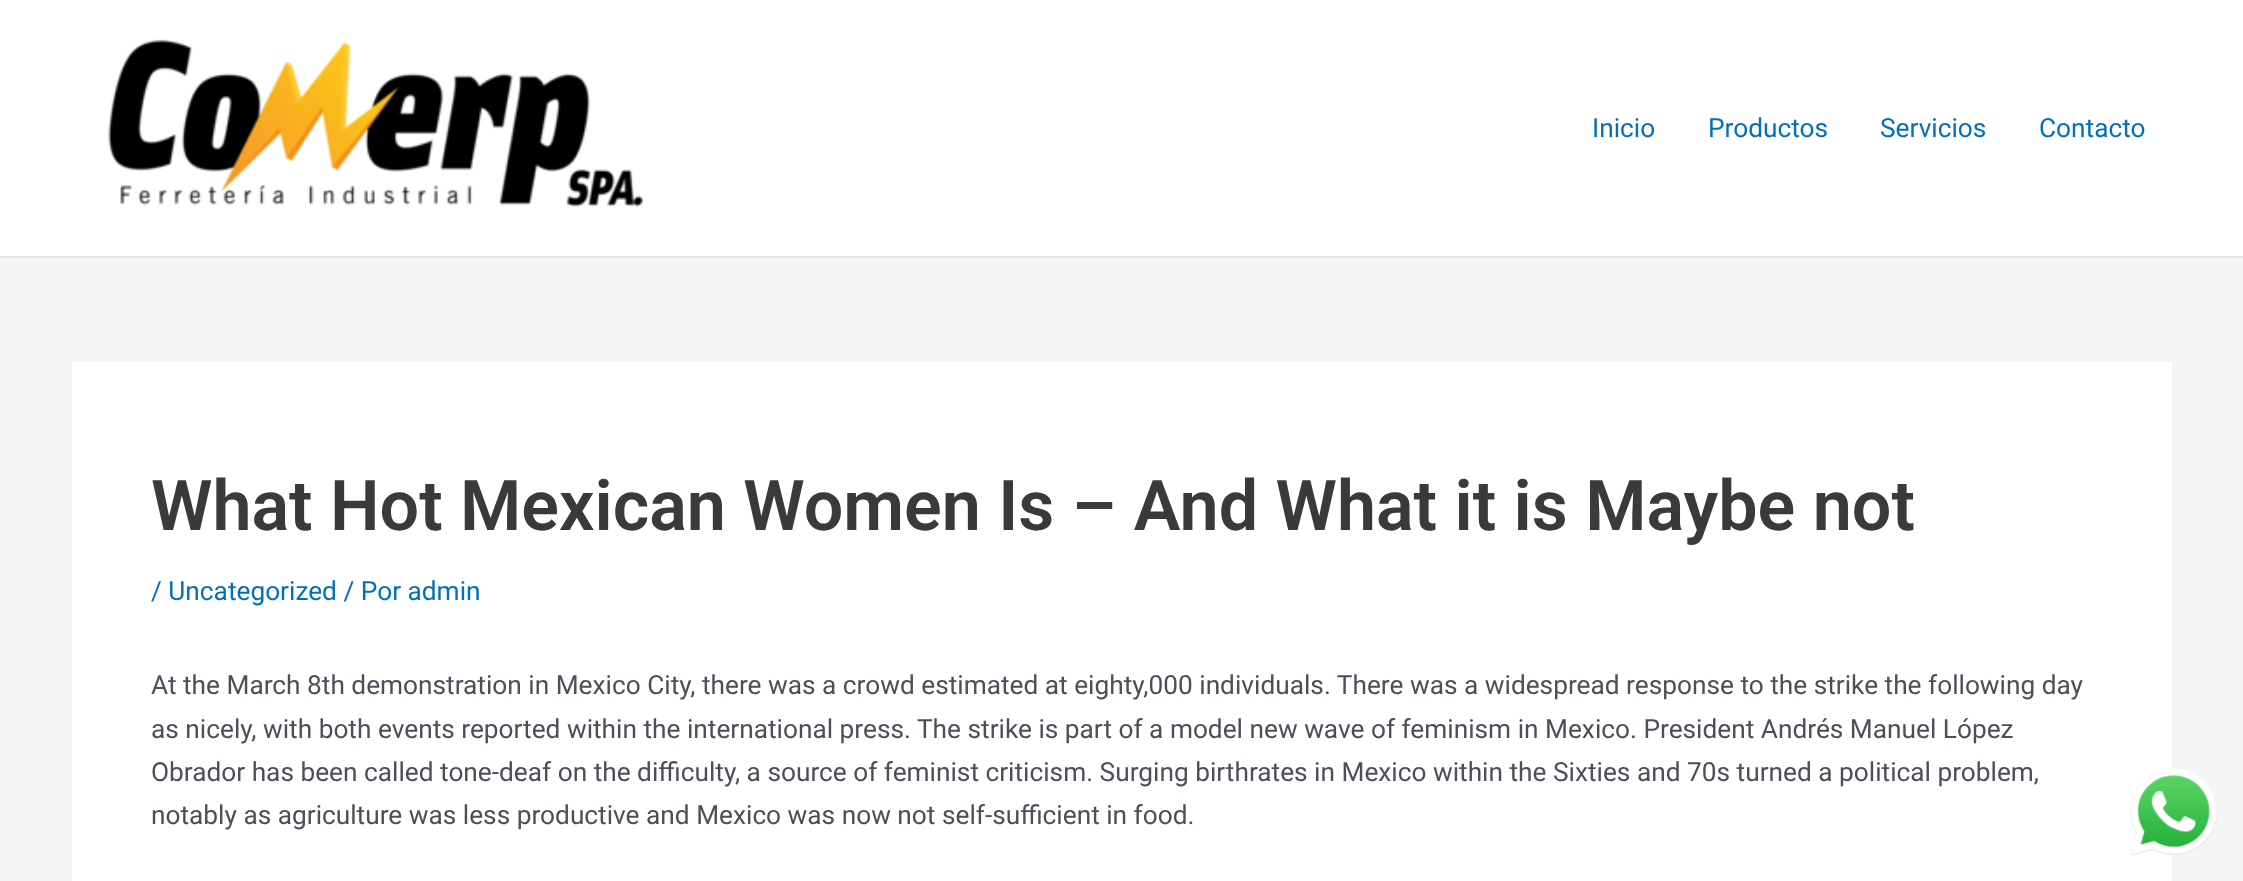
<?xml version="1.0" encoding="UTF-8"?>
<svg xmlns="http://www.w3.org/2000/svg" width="2243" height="881">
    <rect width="100%" height="100%" fill="#F5F5F5"/>
    <rect x="0" y="0" width="2243" height="256" fill="#FFFFFF"/>
    <rect x="0" y="256" width="2243" height="2" fill="#E5E5E5"/>
    <image x="108" y="39" width="536" height="168" href="img_01.png"/>
    <text x="1592" y="137" font-family="Roboto" font-size="26.25" fill="#0170B9">Inicio</text>
    <text x="1708" y="137" font-family="Roboto" font-size="26.25" fill="#0170B9">Productos</text>
    <text x="1880" y="137" font-family="Roboto" font-size="26.25" fill="#0170B9">Servicios</text>
    <text x="2039" y="137" font-family="Roboto" font-size="26.25" fill="#0170B9">Contacto</text>
    <rect x="72" y="362" width="2100" height="519" fill="#FFFFFF"/>
    <text x="151" y="530" font-family="Roboto" font-size="70" font-weight="600" fill="#3A3A3A">What Hot Mexican Women Is – And What it is Maybe not</text>
    <text x="151" y="600" font-family="Roboto" font-size="26.25" fill="#0170B9">/ Uncategorized / Por admin</text>
    <text font-family="Roboto" font-size="26.25" fill="#4B4F58">
        <tspan x="151" y="694">At the March 8th demonstration in Mexico City, there was a crowd estimated at eighty,000 individuals. There was a widespread response to the strike the following day</tspan>
        <tspan x="151" y="738">as nicely, with both events reported within the international press. The strike is part of a model new wave of feminism in Mexico. President Andrés Manuel López</tspan>
        <tspan x="151" y="781">Obrador has been called tone-deaf on the difficulty, a source of feminist criticism. Surging birthrates in Mexico within the Sixties and 70s turned a political problem,</tspan>
        <tspan x="151" y="824">notably as agriculture was less productive and Mexico was now not self-sufficient in food.</tspan>
    </text>
    <image x="2129" y="768" width="88" height="88" href="img_02.png"/>
</svg>
